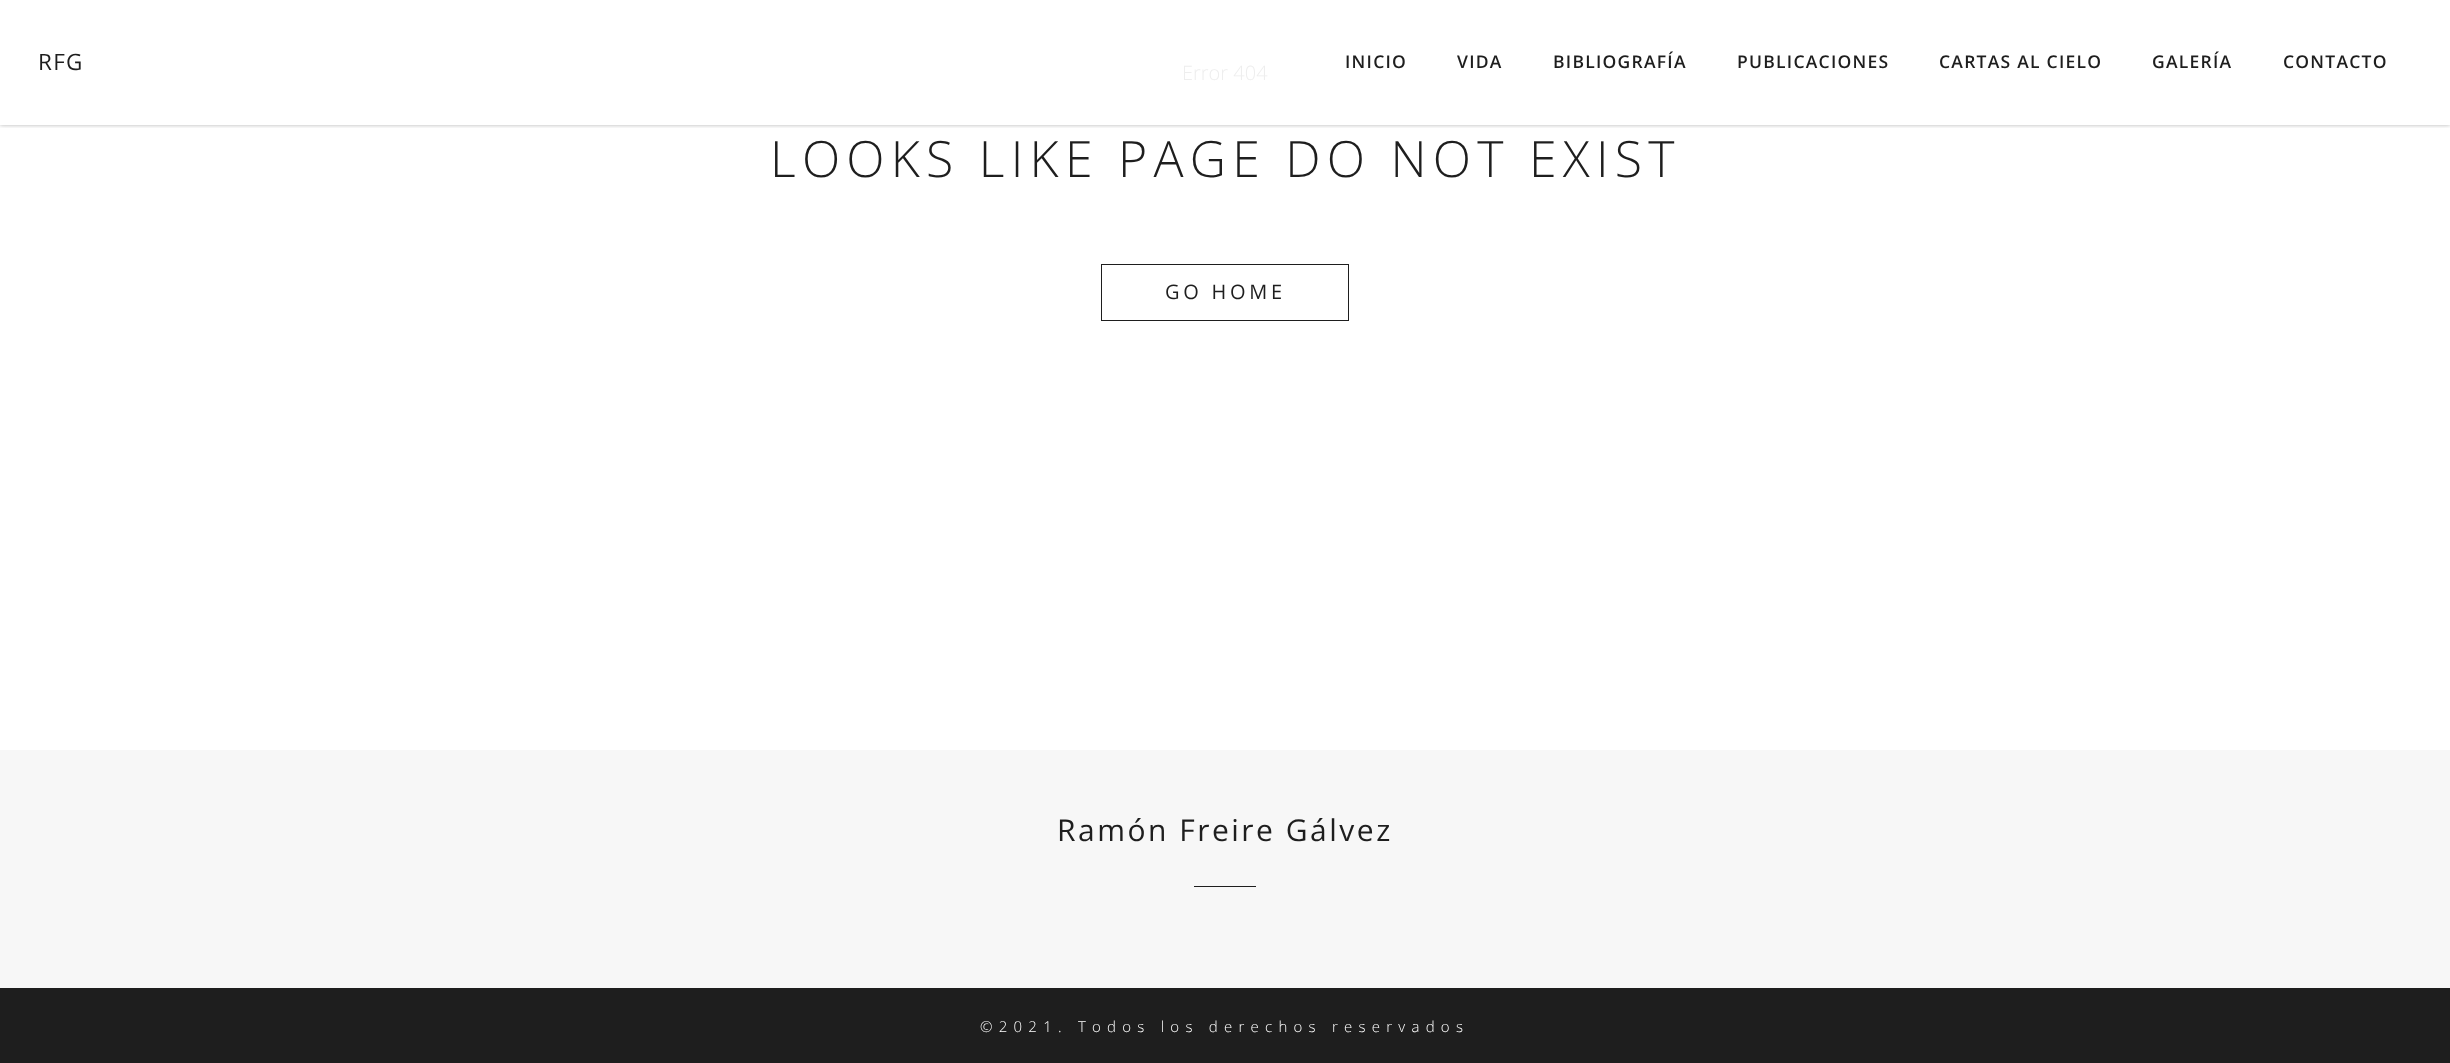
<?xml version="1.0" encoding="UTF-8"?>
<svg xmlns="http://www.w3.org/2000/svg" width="2450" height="1063">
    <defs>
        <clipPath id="clip1"><rect x="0" y="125" width="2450" height="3"/></clipPath>
        <filter id="blur1" x="-50%" y="-200%" width="200%" height="500%"><feGaussianBlur stdDeviation="2"/></filter>
    </defs>
    <rect width="100%" height="100%" fill="#FFFFFF"/>
    <g clip-path="url(#clip1)">
        <rect x="0" y="0" width="2450" height="125" fill="#000000" fill-opacity="0.3" filter="url(#blur1)"/>
    </g>
    <text x="38" y="70" font-family="Open Sans" font-size="22.5" letter-spacing="1.25" fill="#1E1E1E">RFG</text>
    <text x="1345" y="68" font-family="Open Sans" font-size="17.5" font-weight="600" letter-spacing="1.25" fill="#1E1E1E">INICIO</text>
    <text x="1457" y="68" font-family="Open Sans" font-size="17.5" font-weight="600" letter-spacing="1.25" fill="#1E1E1E">VIDA</text>
    <text x="1553" y="68" font-family="Open Sans" font-size="17.5" font-weight="600" letter-spacing="1.25" fill="#1E1E1E">BIBLIOGRAFÍA</text>
    <text x="1737" y="68" font-family="Open Sans" font-size="17.5" font-weight="600" letter-spacing="1.25" fill="#1E1E1E">PUBLICACIONES</text>
    <text x="1939" y="68" font-family="Open Sans" font-size="17.5" font-weight="600" letter-spacing="1.25" fill="#1E1E1E">CARTAS AL CIELO</text>
    <text x="2152" y="68" font-family="Open Sans" font-size="17.5" font-weight="600" letter-spacing="1.25" fill="#1E1E1E">GALERÍA</text>
    <text x="2283" y="68" font-family="Open Sans" font-size="17.5" font-weight="600" letter-spacing="1.25" fill="#1E1E1E">CONTACTO</text>
    <text x="1182" y="80" font-family="Open Sans" font-size="20" font-weight="300" fill="#EEEEEE">Error 404</text>
    <text x="770" y="177" font-family="Open Sans" font-size="50" font-weight="300" letter-spacing="6.25" fill="#1E1E1E">LOOKS LIKE PAGE DO NOT EXIST</text>
    <rect x="1101.5" y="264.5" width="247" height="56" fill="none" stroke="#1E1E1E"/>
    <text x="1165" y="299" font-family="Open Sans" font-size="20" letter-spacing="3.75" fill="#1E1E1E">GO HOME</text>
    <rect x="0" y="750" width="2450" height="238" fill="#F7F7F7"/>
    <text x="1057" y="841" font-family="Open Sans" font-size="30" letter-spacing="2.5" fill="#1E1E1E">Ramón Freire Gálvez</text>
    <rect x="1194" y="886" width="62" height="1" fill="#1E1E1E"/>
    <rect x="0" y="988" width="2450" height="75" fill="#1E1E1E"/>
    <text x="980" y="1032" font-family="Open Sans" font-size="15" font-weight="300" letter-spacing="6.25" fill="#FFFFFF">©2021. Todos los derechos reservados</text>
</svg>
